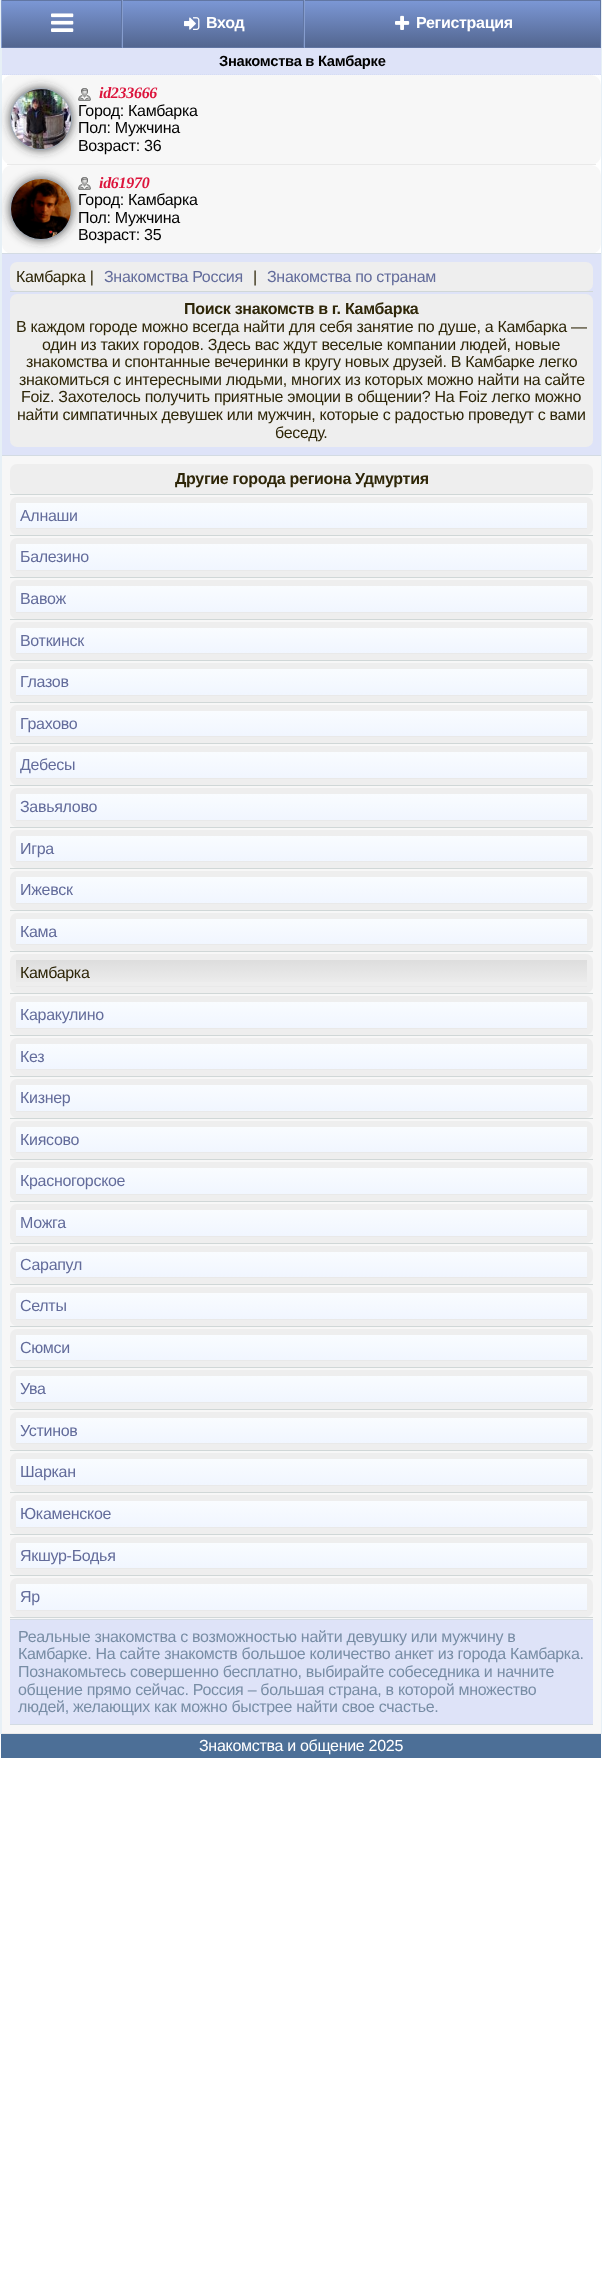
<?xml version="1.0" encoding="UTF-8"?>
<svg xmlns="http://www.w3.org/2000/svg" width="602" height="2289">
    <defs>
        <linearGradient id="g1" gradientUnits="userSpaceOnUse" x1="1" y1="0" x2="1" y2="48"><stop offset="0" stop-color="#7C98D6"/><stop offset="1" stop-color="#52658E"/></linearGradient>
        <filter id="blur1" x="-50%" y="-200%" width="200%" height="500%"><feGaussianBlur stdDeviation="5.5"/></filter>
        <linearGradient id="g2" gradientUnits="userSpaceOnUse" x1="16" y1="503" x2="16" y2="528"><stop offset="0" stop-color="#F9FCFF"/><stop offset="1" stop-color="#F1F6FF"/></linearGradient>
        <linearGradient id="g3" gradientUnits="userSpaceOnUse" x1="16" y1="544" x2="16" y2="570"><stop offset="0" stop-color="#F9FCFF"/><stop offset="1" stop-color="#F1F6FF"/></linearGradient>
        <linearGradient id="g4" gradientUnits="userSpaceOnUse" x1="16" y1="586" x2="16" y2="612"><stop offset="0" stop-color="#F9FCFF"/><stop offset="1" stop-color="#F1F6FF"/></linearGradient>
        <linearGradient id="g5" gradientUnits="userSpaceOnUse" x1="16" y1="628" x2="16" y2="653"><stop offset="0" stop-color="#F9FCFF"/><stop offset="1" stop-color="#F1F6FF"/></linearGradient>
        <linearGradient id="g6" gradientUnits="userSpaceOnUse" x1="16" y1="669" x2="16" y2="695"><stop offset="0" stop-color="#F9FCFF"/><stop offset="1" stop-color="#F1F6FF"/></linearGradient>
        <linearGradient id="g7" gradientUnits="userSpaceOnUse" x1="16" y1="711" x2="16" y2="736"><stop offset="0" stop-color="#F9FCFF"/><stop offset="1" stop-color="#F1F6FF"/></linearGradient>
        <linearGradient id="g8" gradientUnits="userSpaceOnUse" x1="16" y1="752" x2="16" y2="778"><stop offset="0" stop-color="#F9FCFF"/><stop offset="1" stop-color="#F1F6FF"/></linearGradient>
        <linearGradient id="g9" gradientUnits="userSpaceOnUse" x1="16" y1="794" x2="16" y2="820"><stop offset="0" stop-color="#F9FCFF"/><stop offset="1" stop-color="#F1F6FF"/></linearGradient>
        <linearGradient id="g10" gradientUnits="userSpaceOnUse" x1="16" y1="836" x2="16" y2="861"><stop offset="0" stop-color="#F9FCFF"/><stop offset="1" stop-color="#F1F6FF"/></linearGradient>
        <linearGradient id="g11" gradientUnits="userSpaceOnUse" x1="16" y1="877" x2="16" y2="903"><stop offset="0" stop-color="#F9FCFF"/><stop offset="1" stop-color="#F1F6FF"/></linearGradient>
        <linearGradient id="g12" gradientUnits="userSpaceOnUse" x1="16" y1="919" x2="16" y2="944"><stop offset="0" stop-color="#F9FCFF"/><stop offset="1" stop-color="#F1F6FF"/></linearGradient>
        <linearGradient id="g13" gradientUnits="userSpaceOnUse" x1="16" y1="960" x2="16" y2="986"><stop offset="0" stop-color="#DDDDDD"/><stop offset="1" stop-color="#EEEEEE"/></linearGradient>
        <linearGradient id="g14" gradientUnits="userSpaceOnUse" x1="16" y1="1002" x2="16" y2="1028"><stop offset="0" stop-color="#F9FCFF"/><stop offset="1" stop-color="#F1F6FF"/></linearGradient>
        <linearGradient id="g15" gradientUnits="userSpaceOnUse" x1="16" y1="1044" x2="16" y2="1069"><stop offset="0" stop-color="#F9FCFF"/><stop offset="1" stop-color="#F1F6FF"/></linearGradient>
        <linearGradient id="g16" gradientUnits="userSpaceOnUse" x1="16" y1="1085" x2="16" y2="1111"><stop offset="0" stop-color="#F9FCFF"/><stop offset="1" stop-color="#F1F6FF"/></linearGradient>
        <linearGradient id="g17" gradientUnits="userSpaceOnUse" x1="16" y1="1127" x2="16" y2="1152"><stop offset="0" stop-color="#F9FCFF"/><stop offset="1" stop-color="#F1F6FF"/></linearGradient>
        <linearGradient id="g18" gradientUnits="userSpaceOnUse" x1="16" y1="1168" x2="16" y2="1194"><stop offset="0" stop-color="#F9FCFF"/><stop offset="1" stop-color="#F1F6FF"/></linearGradient>
        <linearGradient id="g19" gradientUnits="userSpaceOnUse" x1="16" y1="1210" x2="16" y2="1236"><stop offset="0" stop-color="#F9FCFF"/><stop offset="1" stop-color="#F1F6FF"/></linearGradient>
        <linearGradient id="g20" gradientUnits="userSpaceOnUse" x1="16" y1="1252" x2="16" y2="1277"><stop offset="0" stop-color="#F9FCFF"/><stop offset="1" stop-color="#F1F6FF"/></linearGradient>
        <linearGradient id="g21" gradientUnits="userSpaceOnUse" x1="16" y1="1293" x2="16" y2="1319"><stop offset="0" stop-color="#F9FCFF"/><stop offset="1" stop-color="#F1F6FF"/></linearGradient>
        <linearGradient id="g22" gradientUnits="userSpaceOnUse" x1="16" y1="1335" x2="16" y2="1360"><stop offset="0" stop-color="#F9FCFF"/><stop offset="1" stop-color="#F1F6FF"/></linearGradient>
        <linearGradient id="g23" gradientUnits="userSpaceOnUse" x1="16" y1="1376" x2="16" y2="1402"><stop offset="0" stop-color="#F9FCFF"/><stop offset="1" stop-color="#F1F6FF"/></linearGradient>
        <linearGradient id="g24" gradientUnits="userSpaceOnUse" x1="16" y1="1418" x2="16" y2="1443"><stop offset="0" stop-color="#F9FCFF"/><stop offset="1" stop-color="#F1F6FF"/></linearGradient>
        <linearGradient id="g25" gradientUnits="userSpaceOnUse" x1="16" y1="1459" x2="16" y2="1485"><stop offset="0" stop-color="#F9FCFF"/><stop offset="1" stop-color="#F1F6FF"/></linearGradient>
        <linearGradient id="g26" gradientUnits="userSpaceOnUse" x1="16" y1="1501" x2="16" y2="1527"><stop offset="0" stop-color="#F9FCFF"/><stop offset="1" stop-color="#F1F6FF"/></linearGradient>
        <linearGradient id="g27" gradientUnits="userSpaceOnUse" x1="16" y1="1543" x2="16" y2="1568"><stop offset="0" stop-color="#F9FCFF"/><stop offset="1" stop-color="#F1F6FF"/></linearGradient>
        <linearGradient id="g28" gradientUnits="userSpaceOnUse" x1="16" y1="1584" x2="16" y2="1610"><stop offset="0" stop-color="#F9FCFF"/><stop offset="1" stop-color="#F1F6FF"/></linearGradient>
    </defs>
    <rect width="100%" height="100%" fill="#FFFFFF"/>
    <rect x="601" y="0" width="1" height="1734" fill="#E7F0F6"/>
    <rect x="0" y="0" width="1" height="1734" fill="#E7F0F6"/>
    <rect x="2" y="1" width="598" height="46" fill="url(#g1)"/>
    <rect x="1" y="0" width="600" height="1" fill="#6176A3"/>
    <rect x="121" y="0" width="1" height="48" fill="#6176A3"/>
    <rect x="1" y="47" width="121" height="1" fill="#6176A3"/>
    <rect x="1" y="0" width="1" height="48" fill="#869DCE"/>
    <image x="51" y="13" width="23" height="19" href="img_01.png"/>
    <rect x="303" y="0" width="1" height="48" fill="#6176A3"/>
    <rect x="122" y="47" width="182" height="1" fill="#6176A3"/>
    <rect x="122" y="0" width="1" height="48" fill="#869DCE"/>
    <image x="184" y="17" width="16" height="13" href="img_02.png"/>
    <text x="206" y="28" font-family="Liberation Sans" font-size="16" font-weight="700" letter-spacing="-0.3" fill="#FFFFFF">Вход</text>
    <rect x="600" y="0" width="1" height="48" fill="#6176A3"/>
    <rect x="304" y="47" width="297" height="1" fill="#6176A3"/>
    <rect x="304" y="0" width="1" height="48" fill="#869DCE"/>
    <image x="395" y="15" width="15" height="15" href="img_03.png"/>
    <text x="416" y="28" font-family="Liberation Sans" font-size="16" font-weight="700" letter-spacing="-0.3" fill="#FFFFFF">Регистрация</text>
    <rect x="1" y="48" width="1" height="1686" fill="#E7F0F6"/>
    <rect x="2" y="48" width="599" height="27" fill="#DEE3F8"/>
    <path d="M 2 74.5 H 601" fill="none" stroke="#D5DCF4" stroke-dasharray="1 1"/>
    <text x="219" y="66" font-family="Liberation Sans" font-size="14.75" font-weight="700" letter-spacing="-0.3" fill="#000000">Знакомства в Камбарке</text>
    <rect x="2" y="75" width="599" height="90" rx="10" fill="#F7F7F7"/>
    <rect x="7" y="164" width="589" height="1" fill="#E9E9E9"/>
    <rect x="2" y="165" width="599" height="89" rx="10" fill="#F7F7F7"/>
    <rect x="11" y="89" width="60" height="60" rx="30" fill="#333333" filter="url(#blur1)"/>
    <circle cx="41" cy="119" r="30.5" fill="none" stroke="#9EAAB9"/>
    <image x="11" y="89" width="60" height="60" href="img_04.png"/>
    <image x="78" y="88" width="13" height="13" href="img_05.png"/>
    <text x="99" y="98" font-family="Liberation Serif" font-size="16" font-weight="700" font-style="italic" letter-spacing="-0.3" fill="#DC143C">id233666</text>
    <text font-family="Liberation Sans" font-size="16" letter-spacing="-0.3" fill="#000000">
        <tspan x="78" y="116">Город: Камбарка</tspan>
        <tspan x="78" y="133">Пол: Мужчина</tspan>
        <tspan x="78" y="151">Возраст: 36</tspan>
    </text>
    <rect x="11" y="179" width="60" height="60" rx="30" fill="#333333" filter="url(#blur1)"/>
    <circle cx="41" cy="209" r="30.5" fill="none" stroke="#9EAAB9"/>
    <image x="11" y="179" width="60" height="60" href="img_06.png"/>
    <image x="78" y="177" width="13" height="13" href="img_07.png"/>
    <text x="99" y="188" font-family="Liberation Serif" font-size="16" font-weight="700" font-style="italic" letter-spacing="-0.3" fill="#DC143C">id61970</text>
    <text font-family="Liberation Sans" font-size="16" letter-spacing="-0.3" fill="#000000">
        <tspan x="78" y="205">Город: Камбарка</tspan>
        <tspan x="78" y="223">Пол: Мужчина</tspan>
        <tspan x="78" y="240">Возраст: 35</tspan>
    </text>
    <rect x="2" y="254" width="599" height="201" fill="#DEE3F8"/>
    <rect x="2" y="253" width="599" height="1" fill="#D3DBE3"/>
    <rect x="2" y="455" width="599" height="1" fill="#D3DBE3"/>
    <rect x="10" y="262" width="583" height="29" rx="7" fill="#EEEEEE"/>
    <text x="16" y="282" font-family="Liberation Sans" font-size="16" letter-spacing="-0.3" fill="#2E2608">Камбарка |</text>
    <text x="104" y="282" font-family="Liberation Sans" font-size="16" letter-spacing="-0.3" fill="#636C9B">Знакомства Россия</text>
    <text x="253" y="282" font-family="Liberation Sans" font-size="16" letter-spacing="-0.3" fill="#2E2608">|</text>
    <text x="267" y="282" font-family="Liberation Sans" font-size="16" letter-spacing="-0.3" fill="#636C9B">Знакомства по странам</text>
    <rect x="10" y="291" width="583" height="1" fill="#D0D7D7"/>
    <rect x="10" y="294" width="583" height="153" rx="7" fill="#EEEEEE"/>
    <text x="184" y="314" font-family="Liberation Sans" font-size="16" font-weight="700" letter-spacing="-0.3" fill="#2E2608">Поиск знакомств в г. Камбарка</text>
    <text x="16" y="332" font-family="Liberation Sans" font-size="16" letter-spacing="-0.3" fill="#2E2608">В каждом городе можно всегда найти для себя занятие по душе, а Камбарка —</text>
    <text x="42" y="350" font-family="Liberation Sans" font-size="16" letter-spacing="-0.3" fill="#2E2608">один из таких городов. Здесь вас ждут веселые компании людей, новые</text>
    <text x="26" y="367" font-family="Liberation Sans" font-size="16" letter-spacing="-0.3" fill="#2E2608">знакомства и спонтанные вечеринки в кругу новых друзей. В Камбарке легко</text>
    <text x="19" y="385" font-family="Liberation Sans" font-size="16" letter-spacing="-0.3" fill="#2E2608">знакомиться с интересными людьми, многих из которых можно найти на сайте</text>
    <text x="21" y="402" font-family="Liberation Sans" font-size="16" letter-spacing="-0.3" fill="#2E2608">Foiz. Захотелось получить приятные эмоции в общении? На Foiz легко можно</text>
    <text x="17" y="420" font-family="Liberation Sans" font-size="16" letter-spacing="-0.3" fill="#2E2608">найти симпатичных девушек или мужчин, которые с радостью проведут с вами</text>
    <text x="275" y="438" font-family="Liberation Sans" font-size="16" letter-spacing="-0.3" fill="#2E2608">беседу.</text>
    <rect x="2" y="456" width="599" height="1277" fill="#F7F7F7"/>
    <rect x="2" y="1733" width="599" height="1" fill="#E9E9E9"/>
    <rect x="10" y="464" width="583" height="30" rx="7" fill="#EEEEEE"/>
    <text x="175" y="484" font-family="Liberation Sans" font-size="16" font-weight="700" letter-spacing="-0.3" fill="#2E2608">Другие города региона Удмуртия</text>
    <rect x="10" y="494" width="583" height="1" fill="#D0D7D7"/>
    <rect x="10" y="497" width="583" height="38" rx="7" fill="#EEEEEE"/>
    <rect x="16" y="503" width="571" height="25" fill="url(#g2)"/>
    <rect x="16" y="528" width="571" height="1" fill="#E9E9E9"/>
    <text x="20" y="521" font-family="Liberation Sans" font-size="16" letter-spacing="-0.3" fill="#636C9B">Алнаши</text>
    <rect x="10" y="535" width="583" height="1" fill="#D0D7D7"/>
    <rect x="10" y="538" width="583" height="39" rx="7" fill="#EEEEEE"/>
    <rect x="16" y="544" width="571" height="26" fill="url(#g3)"/>
    <rect x="16" y="570" width="571" height="1" fill="#E9E9E9"/>
    <text x="20" y="562" font-family="Liberation Sans" font-size="16" letter-spacing="-0.3" fill="#636C9B">Балезино</text>
    <rect x="10" y="577" width="583" height="1" fill="#D0D7D7"/>
    <rect x="10" y="580" width="583" height="39" rx="7" fill="#EEEEEE"/>
    <rect x="16" y="586" width="571" height="26" fill="url(#g4)"/>
    <rect x="16" y="612" width="571" height="1" fill="#E9E9E9"/>
    <text x="20" y="604" font-family="Liberation Sans" font-size="16" letter-spacing="-0.3" fill="#636C9B">Вавож</text>
    <rect x="10" y="619" width="583" height="1" fill="#D0D7D7"/>
    <rect x="10" y="622" width="583" height="38" rx="7" fill="#EEEEEE"/>
    <rect x="16" y="628" width="571" height="25" fill="url(#g5)"/>
    <rect x="16" y="653" width="571" height="1" fill="#E9E9E9"/>
    <text x="20" y="646" font-family="Liberation Sans" font-size="16" letter-spacing="-0.3" fill="#636C9B">Воткинск</text>
    <rect x="10" y="660" width="583" height="1" fill="#D0D7D7"/>
    <rect x="10" y="663" width="583" height="39" rx="7" fill="#EEEEEE"/>
    <rect x="16" y="669" width="571" height="26" fill="url(#g6)"/>
    <rect x="16" y="695" width="571" height="1" fill="#E9E9E9"/>
    <text x="20" y="687" font-family="Liberation Sans" font-size="16" letter-spacing="-0.3" fill="#636C9B">Глазов</text>
    <rect x="10" y="702" width="583" height="1" fill="#D0D7D7"/>
    <rect x="10" y="705" width="583" height="38" rx="7" fill="#EEEEEE"/>
    <rect x="16" y="711" width="571" height="25" fill="url(#g7)"/>
    <rect x="16" y="736" width="571" height="1" fill="#E9E9E9"/>
    <text x="20" y="729" font-family="Liberation Sans" font-size="16" letter-spacing="-0.3" fill="#636C9B">Грахово</text>
    <rect x="10" y="743" width="583" height="1" fill="#D0D7D7"/>
    <rect x="10" y="746" width="583" height="39" rx="7" fill="#EEEEEE"/>
    <rect x="16" y="752" width="571" height="26" fill="url(#g8)"/>
    <rect x="16" y="778" width="571" height="1" fill="#E9E9E9"/>
    <text x="20" y="770" font-family="Liberation Sans" font-size="16" letter-spacing="-0.3" fill="#636C9B">Дебесы</text>
    <rect x="10" y="785" width="583" height="1" fill="#D0D7D7"/>
    <rect x="10" y="788" width="583" height="39" rx="7" fill="#EEEEEE"/>
    <rect x="16" y="794" width="571" height="26" fill="url(#g9)"/>
    <rect x="16" y="820" width="571" height="1" fill="#E9E9E9"/>
    <text x="20" y="812" font-family="Liberation Sans" font-size="16" letter-spacing="-0.3" fill="#636C9B">Завьялово</text>
    <rect x="10" y="827" width="583" height="1" fill="#D0D7D7"/>
    <rect x="10" y="830" width="583" height="38" rx="7" fill="#EEEEEE"/>
    <rect x="16" y="836" width="571" height="25" fill="url(#g10)"/>
    <rect x="16" y="861" width="571" height="1" fill="#E9E9E9"/>
    <text x="20" y="854" font-family="Liberation Sans" font-size="16" letter-spacing="-0.3" fill="#636C9B">Игра</text>
    <rect x="10" y="868" width="583" height="1" fill="#D0D7D7"/>
    <rect x="10" y="871" width="583" height="39" rx="7" fill="#EEEEEE"/>
    <rect x="16" y="877" width="571" height="26" fill="url(#g11)"/>
    <rect x="16" y="903" width="571" height="1" fill="#E9E9E9"/>
    <text x="20" y="895" font-family="Liberation Sans" font-size="16" letter-spacing="-0.3" fill="#636C9B">Ижевск</text>
    <rect x="10" y="910" width="583" height="1" fill="#D0D7D7"/>
    <rect x="10" y="913" width="583" height="38" rx="7" fill="#EEEEEE"/>
    <rect x="16" y="919" width="571" height="25" fill="url(#g12)"/>
    <rect x="16" y="944" width="571" height="1" fill="#E9E9E9"/>
    <text x="20" y="937" font-family="Liberation Sans" font-size="16" letter-spacing="-0.3" fill="#636C9B">Кама</text>
    <rect x="10" y="951" width="583" height="1" fill="#D0D7D7"/>
    <rect x="10" y="954" width="583" height="39" rx="7" fill="#EEEEEE"/>
    <rect x="16" y="960" width="571" height="22" fill="url(#g13)"/>
    <rect x="16" y="986" width="571" height="1" fill="#E9E9E9"/>
    <text x="20" y="978" font-family="Liberation Sans" font-size="16" letter-spacing="-0.3" fill="#2E2608">Камбарка</text>
    <rect x="10" y="993" width="583" height="1" fill="#D0D7D7"/>
    <rect x="10" y="996" width="583" height="39" rx="7" fill="#EEEEEE"/>
    <rect x="16" y="1002" width="571" height="26" fill="url(#g14)"/>
    <rect x="16" y="1028" width="571" height="1" fill="#E9E9E9"/>
    <text x="20" y="1020" font-family="Liberation Sans" font-size="16" letter-spacing="-0.3" fill="#636C9B">Каракулино</text>
    <rect x="10" y="1035" width="583" height="1" fill="#D0D7D7"/>
    <rect x="10" y="1038" width="583" height="38" rx="7" fill="#EEEEEE"/>
    <rect x="16" y="1044" width="571" height="25" fill="url(#g15)"/>
    <rect x="16" y="1069" width="571" height="1" fill="#E9E9E9"/>
    <text x="20" y="1062" font-family="Liberation Sans" font-size="16" letter-spacing="-0.3" fill="#636C9B">Кез</text>
    <rect x="10" y="1076" width="583" height="1" fill="#D0D7D7"/>
    <rect x="10" y="1079" width="583" height="39" rx="7" fill="#EEEEEE"/>
    <rect x="16" y="1085" width="571" height="26" fill="url(#g16)"/>
    <rect x="16" y="1111" width="571" height="1" fill="#E9E9E9"/>
    <text x="20" y="1103" font-family="Liberation Sans" font-size="16" letter-spacing="-0.3" fill="#636C9B">Кизнер</text>
    <rect x="10" y="1118" width="583" height="1" fill="#D0D7D7"/>
    <rect x="10" y="1121" width="583" height="38" rx="7" fill="#EEEEEE"/>
    <rect x="16" y="1127" width="571" height="25" fill="url(#g17)"/>
    <rect x="16" y="1152" width="571" height="1" fill="#E9E9E9"/>
    <text x="20" y="1145" font-family="Liberation Sans" font-size="16" letter-spacing="-0.3" fill="#636C9B">Киясово</text>
    <rect x="10" y="1159" width="583" height="1" fill="#D0D7D7"/>
    <rect x="10" y="1162" width="583" height="39" rx="7" fill="#EEEEEE"/>
    <rect x="16" y="1168" width="571" height="26" fill="url(#g18)"/>
    <rect x="16" y="1194" width="571" height="1" fill="#E9E9E9"/>
    <text x="20" y="1186" font-family="Liberation Sans" font-size="16" letter-spacing="-0.3" fill="#636C9B">Красногорское</text>
    <rect x="10" y="1201" width="583" height="1" fill="#D0D7D7"/>
    <rect x="10" y="1204" width="583" height="39" rx="7" fill="#EEEEEE"/>
    <rect x="16" y="1210" width="571" height="26" fill="url(#g19)"/>
    <rect x="16" y="1236" width="571" height="1" fill="#E9E9E9"/>
    <text x="20" y="1228" font-family="Liberation Sans" font-size="16" letter-spacing="-0.3" fill="#636C9B">Можга</text>
    <rect x="10" y="1243" width="583" height="1" fill="#D0D7D7"/>
    <rect x="10" y="1246" width="583" height="38" rx="7" fill="#EEEEEE"/>
    <rect x="16" y="1252" width="571" height="25" fill="url(#g20)"/>
    <rect x="16" y="1277" width="571" height="1" fill="#E9E9E9"/>
    <text x="20" y="1270" font-family="Liberation Sans" font-size="16" letter-spacing="-0.3" fill="#636C9B">Сарапул</text>
    <rect x="10" y="1284" width="583" height="1" fill="#D0D7D7"/>
    <rect x="10" y="1287" width="583" height="39" rx="7" fill="#EEEEEE"/>
    <rect x="16" y="1293" width="571" height="26" fill="url(#g21)"/>
    <rect x="16" y="1319" width="571" height="1" fill="#E9E9E9"/>
    <text x="20" y="1311" font-family="Liberation Sans" font-size="16" letter-spacing="-0.3" fill="#636C9B">Селты</text>
    <rect x="10" y="1326" width="583" height="1" fill="#D0D7D7"/>
    <rect x="10" y="1329" width="583" height="38" rx="7" fill="#EEEEEE"/>
    <rect x="16" y="1335" width="571" height="25" fill="url(#g22)"/>
    <rect x="16" y="1360" width="571" height="1" fill="#E9E9E9"/>
    <text x="20" y="1353" font-family="Liberation Sans" font-size="16" letter-spacing="-0.3" fill="#636C9B">Сюмси</text>
    <rect x="10" y="1367" width="583" height="1" fill="#D0D7D7"/>
    <rect x="10" y="1370" width="583" height="39" rx="7" fill="#EEEEEE"/>
    <rect x="16" y="1376" width="571" height="26" fill="url(#g23)"/>
    <rect x="16" y="1402" width="571" height="1" fill="#E9E9E9"/>
    <text x="20" y="1394" font-family="Liberation Sans" font-size="16" letter-spacing="-0.3" fill="#636C9B">Ува</text>
    <rect x="10" y="1409" width="583" height="1" fill="#D0D7D7"/>
    <rect x="10" y="1412" width="583" height="38" rx="7" fill="#EEEEEE"/>
    <rect x="16" y="1418" width="571" height="25" fill="url(#g24)"/>
    <rect x="16" y="1443" width="571" height="1" fill="#E9E9E9"/>
    <text x="20" y="1436" font-family="Liberation Sans" font-size="16" letter-spacing="-0.3" fill="#636C9B">Устинов</text>
    <rect x="10" y="1450" width="583" height="1" fill="#D0D7D7"/>
    <rect x="10" y="1453" width="583" height="39" rx="7" fill="#EEEEEE"/>
    <rect x="16" y="1459" width="571" height="26" fill="url(#g25)"/>
    <rect x="16" y="1485" width="571" height="1" fill="#E9E9E9"/>
    <text x="20" y="1477" font-family="Liberation Sans" font-size="16" letter-spacing="-0.3" fill="#636C9B">Шаркан</text>
    <rect x="10" y="1492" width="583" height="1" fill="#D0D7D7"/>
    <rect x="10" y="1495" width="583" height="39" rx="7" fill="#EEEEEE"/>
    <rect x="16" y="1501" width="571" height="26" fill="url(#g26)"/>
    <rect x="16" y="1527" width="571" height="1" fill="#E9E9E9"/>
    <text x="20" y="1519" font-family="Liberation Sans" font-size="16" letter-spacing="-0.3" fill="#636C9B">Юкаменское</text>
    <rect x="10" y="1534" width="583" height="1" fill="#D0D7D7"/>
    <rect x="10" y="1537" width="583" height="38" rx="7" fill="#EEEEEE"/>
    <rect x="16" y="1543" width="571" height="25" fill="url(#g27)"/>
    <rect x="16" y="1568" width="571" height="1" fill="#E9E9E9"/>
    <text x="20" y="1561" font-family="Liberation Sans" font-size="16" letter-spacing="-0.3" fill="#636C9B">Якшур-Бодья</text>
    <rect x="10" y="1575" width="583" height="1" fill="#D0D7D7"/>
    <rect x="10" y="1578" width="583" height="39" rx="7" fill="#EEEEEE"/>
    <rect x="16" y="1584" width="571" height="26" fill="url(#g28)"/>
    <rect x="16" y="1610" width="571" height="1" fill="#E9E9E9"/>
    <text x="20" y="1602" font-family="Liberation Sans" font-size="16" letter-spacing="-0.3" fill="#636C9B">Яр</text>
    <rect x="10" y="1617" width="583" height="1" fill="#D0D7D7"/>
    <rect x="10" y="1620" width="583" height="104" fill="#DEE3F8"/>
    <rect x="10" y="1619" width="583" height="1" fill="#D3DBE3"/>
    <rect x="10" y="1724" width="583" height="1" fill="#D3DBE3"/>
    <text font-family="Liberation Sans" font-size="16" letter-spacing="-0.3" fill="#788DA5">
        <tspan x="18" y="1642">Реальные знакомства с возможностью найти девушку или мужчину в</tspan>
        <tspan x="18" y="1659">Камбарке. На сайте знакомств большое количество анкет из города Камбарка.</tspan>
        <tspan x="18" y="1677">Познакомьтесь совершенно бесплатно, выбирайте собеседника и начните</tspan>
        <tspan x="18" y="1695">общение прямо сейчас. Россия – большая страна, в которой множество</tspan>
        <tspan x="18" y="1712">людей, желающих как можно быстрее найти свое счастье.</tspan>
    </text>
    <rect x="1" y="1734" width="600" height="24" fill="#4C6F97"/>
    <text x="199" y="1751" font-family="Liberation Sans" font-size="16" letter-spacing="-0.3" fill="#FFFFFF">Знакомства и общение 2025</text>
</svg>
